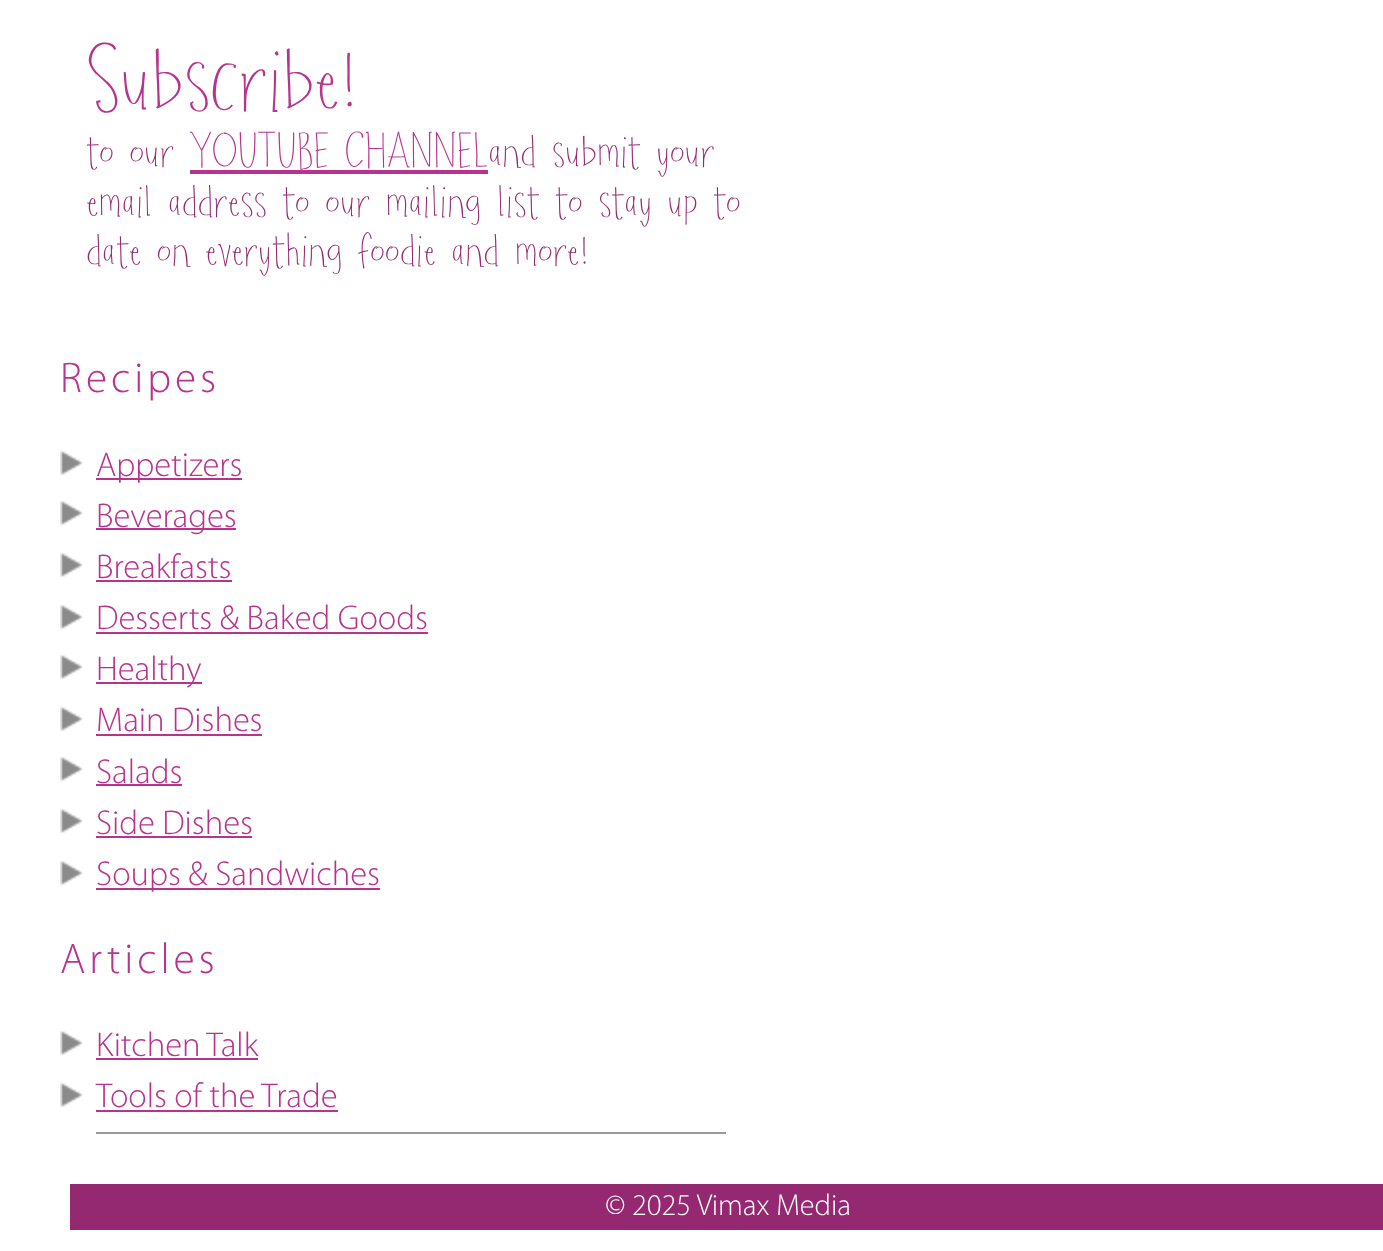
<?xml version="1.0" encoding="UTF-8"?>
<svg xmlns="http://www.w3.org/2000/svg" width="1383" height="1251">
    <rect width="100%" height="100%" fill="#FFFFFF"/>
    <text x="86" y="107" font-family="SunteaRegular" font-size="92.5" fill="#B8338E">Subscribe!</text>
    <text x="86" y="165" font-family="SunteaRegular" font-size="46.25" fill="#942972">to our</text>
    <text x="189" y="165" font-family="SunteaRegular" font-size="46.25" fill="#B8338E">YOUTUBE CHANNEL</text>
    <text x="488" y="165" font-family="SunteaRegular" font-size="46.25" fill="#942972">and submit your</text>
    <rect x="190" y="170" width="298" height="4" fill="#B8338E"/>
    <text font-family="SunteaRegular" font-size="46.25" fill="#942972">
        <tspan x="86" y="215">email address to our mailing list to stay up to</tspan>
        <tspan x="86" y="264">date on everything foodie and more!</tspan>
    </text>
    <text x="60" y="392" font-family="Myriad" font-size="40" font-weight="300" letter-spacing="4" fill="#B8338E">Recipes</text>
    <image x="60" y="450" width="22" height="26" href="img_01.png"/>
    <rect x="96" y="478" width="146" height="2" fill="#B8338E"/>
    <text x="96" y="476" font-family="Myriad" font-size="32" font-weight="300" fill="#B8338E">Appetizers</text>
    <image x="60" y="500" width="22" height="26" href="img_01.png"/>
    <rect x="96" y="528" width="140" height="2" fill="#B8338E"/>
    <text x="96" y="527" font-family="Myriad" font-size="32" font-weight="300" fill="#B8338E">Beverages</text>
    <image x="60" y="552" width="22" height="26" href="img_01.png"/>
    <text x="96" y="578" font-family="Myriad" font-size="32" font-weight="300" fill="#B8338E">Breakfasts</text>
    <rect x="96" y="580" width="136" height="2" fill="#B8338E"/>
    <image x="60" y="604" width="22" height="26" href="img_01.png"/>
    <text x="96" y="629" font-family="Myriad" font-size="32" font-weight="300" fill="#B8338E">Desserts &amp; Baked Goods</text>
    <rect x="96" y="632" width="332" height="2" fill="#B8338E"/>
    <image x="60" y="654" width="22" height="26" href="img_01.png"/>
    <rect x="96" y="682" width="106" height="2" fill="#B8338E"/>
    <text x="96" y="680" font-family="Myriad" font-size="32" font-weight="300" fill="#B8338E">Healthy</text>
    <image x="60" y="706" width="22" height="26" href="img_01.png"/>
    <text x="96" y="731" font-family="Myriad" font-size="32" font-weight="300" fill="#B8338E">Main Dishes</text>
    <rect x="96" y="734" width="166" height="2" fill="#B8338E"/>
    <image x="60" y="756" width="22" height="26" href="img_01.png"/>
    <text x="96" y="783" font-family="Myriad" font-size="32" font-weight="300" fill="#B8338E">Salads</text>
    <rect x="96" y="784" width="86" height="2" fill="#B8338E"/>
    <image x="60" y="808" width="22" height="26" href="img_01.png"/>
    <text x="96" y="834" font-family="Myriad" font-size="32" font-weight="300" fill="#B8338E">Side Dishes</text>
    <rect x="96" y="836" width="156" height="2" fill="#B8338E"/>
    <image x="60" y="860" width="22" height="26" href="img_01.png"/>
    <rect x="96" y="888" width="284" height="2" fill="#B8338E"/>
    <text x="96" y="885" font-family="Myriad" font-size="32" font-weight="300" fill="#B8338E">Soups &amp; Sandwiches</text>
    <text x="60" y="973" font-family="Myriad" font-size="40" font-weight="300" letter-spacing="4" fill="#B8338E">Articles</text>
    <image x="60" y="1030" width="22" height="26" href="img_01.png"/>
    <text x="96" y="1056" font-family="Myriad" font-size="32" font-weight="300" fill="#B8338E">Kitchen Talk</text>
    <rect x="96" y="1058" width="162" height="2" fill="#B8338E"/>
    <image x="60" y="1082" width="22" height="26" href="img_01.png"/>
    <text x="96" y="1107" font-family="Myriad" font-size="32" font-weight="300" fill="#B8338E">Tools of the Trade</text>
    <rect x="96" y="1110" width="242" height="2" fill="#B8338E"/>
    <rect x="96" y="1132" width="630" height="2" fill="#999999"/>
    <rect x="70" y="1184" width="1313" height="46" fill="#942972"/>
    <text x="605" y="1215" font-family="Myriad" font-size="28" font-weight="300" fill="#FFFFFF">© 2025 Vimax Media</text>
</svg>
